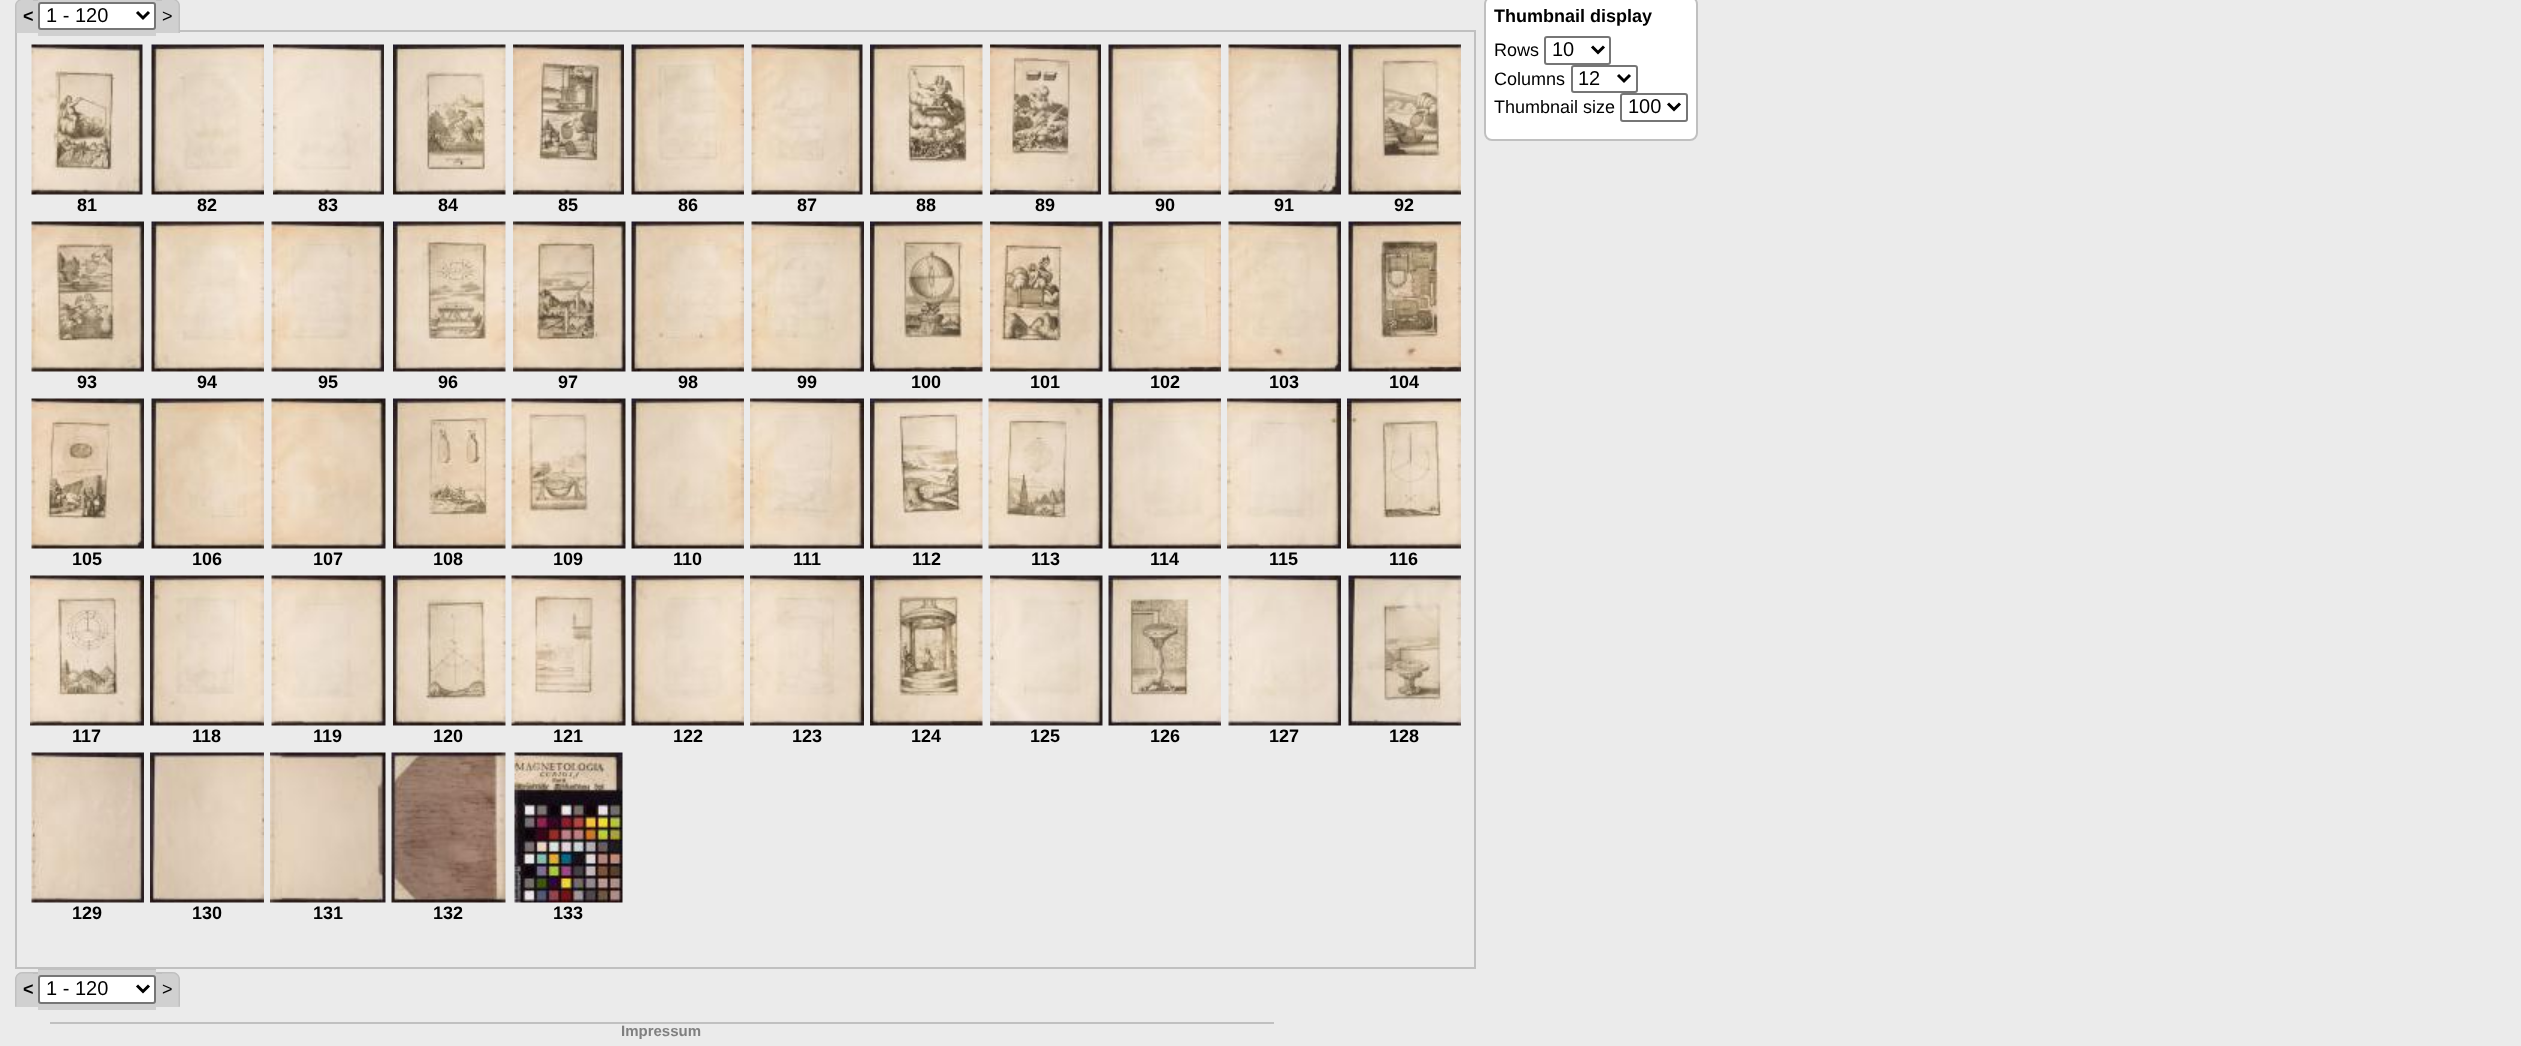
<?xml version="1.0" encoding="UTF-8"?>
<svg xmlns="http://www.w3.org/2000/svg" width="2521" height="1046">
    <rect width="100%" height="100%" fill="#EBEBEB"/>
    <rect x="16" y="31" width="1459" height="937" fill="none" stroke="#C0C0C0" stroke-width="2"/>
    <path d="M 23 -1 H 33 V 33 H 15 V 7 C 15 2.5 18.5 -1 23 -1 Z" fill="#D0D0D0"/>
    <path d="M 22.5 -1.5 H 33 V 33 H 15 V 6 C 15 2 18.5 -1.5 22.5 -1.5 Z M 22.5 0 H 33 V 33 H 16.5 V 6 C 16.5 2.5 19 0 22.5 0 Z" fill="#C0C0C0" fill-rule="evenodd"/>
    <rect x="33" y="0" width="5" height="33" fill="#D0D0D0"/>
    <rect x="33" y="0" width="5" height="1" fill="#C0C0C0"/>
    <rect x="38" y="0" width="118" height="36" fill="#D0D0D0"/>
    <rect x="156" y="0" width="6" height="33" fill="#D0D0D0"/>
    <rect x="156" y="0" width="6" height="1" fill="#C0C0C0"/>
    <path d="M 162 -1 H 172 C 176.5 -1 180 2.5 180 7 V 33 H 162 Z" fill="#D0D0D0"/>
    <path d="M 162 -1.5 H 172.5 C 176.5 -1.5 180 2 180 6 V 33 H 162 Z M 162 0 H 172.5 C 176 0 178.5 2.5 178.5 6 V 33 H 162 Z" fill="#C0C0C0" fill-rule="evenodd"/>
    <text x="23" y="22" font-family="Liberation Sans" font-size="18" font-weight="700" fill="#000000">&lt;</text>
    <rect x="39" y="3" width="116" height="26" rx="2" fill="#FFFFFF" stroke="#767676" stroke-width="2"/>
    <path d="M 137 12 L 143 18 L 149 12" fill="none" stroke="#000000" stroke-width="3"/>
    <text x="46" y="22" font-family="Liberation Sans" font-size="20" fill="#000000">1 - 120</text>
    <text x="162" y="22" font-family="Liberation Sans" font-size="18" fill="#000000">&gt;</text>
    <image x="31" y="44" width="112" height="151" href="img_01.png"/>
    <text x="77" y="211" font-family="Liberation Sans" font-size="18" font-weight="700" fill="#000000">81</text>
    <image x="151" y="44" width="113" height="151" href="img_02.png"/>
    <text x="197" y="211" font-family="Liberation Sans" font-size="18" font-weight="700" fill="#000000">82</text>
    <image x="273" y="44" width="111" height="151" href="img_03.png"/>
    <text x="318" y="211" font-family="Liberation Sans" font-size="18" font-weight="700" fill="#000000">83</text>
    <image x="393" y="44" width="113" height="151" href="img_04.png"/>
    <text x="438" y="211" font-family="Liberation Sans" font-size="18" font-weight="700" fill="#000000">84</text>
    <image x="513" y="44" width="111" height="151" href="img_05.png"/>
    <text x="558" y="211" font-family="Liberation Sans" font-size="18" font-weight="700" fill="#000000">85</text>
    <image x="631" y="44" width="113" height="151" href="img_06.png"/>
    <text x="678" y="211" font-family="Liberation Sans" font-size="18" font-weight="700" fill="#000000">86</text>
    <image x="751" y="44" width="112" height="151" href="img_07.png"/>
    <text x="797" y="211" font-family="Liberation Sans" font-size="18" font-weight="700" fill="#000000">87</text>
    <image x="870" y="44" width="113" height="151" href="img_08.png"/>
    <text x="916" y="211" font-family="Liberation Sans" font-size="18" font-weight="700" fill="#000000">88</text>
    <image x="990" y="44" width="111" height="151" href="img_09.png"/>
    <text x="1035" y="211" font-family="Liberation Sans" font-size="18" font-weight="700" fill="#000000">89</text>
    <image x="1108" y="44" width="113" height="151" href="img_10.png"/>
    <text x="1155" y="211" font-family="Liberation Sans" font-size="18" font-weight="700" fill="#000000">90</text>
    <image x="1228" y="44" width="113" height="151" href="img_11.png"/>
    <text x="1274" y="211" font-family="Liberation Sans" font-size="18" font-weight="700" fill="#000000">91</text>
    <image x="1348" y="44" width="113" height="151" href="img_12.png"/>
    <text x="1394" y="211" font-family="Liberation Sans" font-size="18" font-weight="700" fill="#000000">92</text>
    <image x="31" y="221" width="113" height="151" href="img_13.png"/>
    <text x="77" y="388" font-family="Liberation Sans" font-size="18" font-weight="700" fill="#000000">93</text>
    <image x="151" y="221" width="113" height="151" href="img_14.png"/>
    <text x="197" y="388" font-family="Liberation Sans" font-size="18" font-weight="700" fill="#000000">94</text>
    <image x="271" y="221" width="113" height="151" href="img_15.png"/>
    <text x="318" y="388" font-family="Liberation Sans" font-size="18" font-weight="700" fill="#000000">95</text>
    <image x="393" y="221" width="113" height="151" href="img_16.png"/>
    <text x="438" y="388" font-family="Liberation Sans" font-size="18" font-weight="700" fill="#000000">96</text>
    <image x="513" y="221" width="113" height="151" href="img_17.png"/>
    <text x="558" y="388" font-family="Liberation Sans" font-size="18" font-weight="700" fill="#000000">97</text>
    <image x="631" y="221" width="113" height="151" href="img_18.png"/>
    <text x="678" y="388" font-family="Liberation Sans" font-size="18" font-weight="700" fill="#000000">98</text>
    <image x="751" y="221" width="113" height="151" href="img_19.png"/>
    <text x="797" y="388" font-family="Liberation Sans" font-size="18" font-weight="700" fill="#000000">99</text>
    <image x="870" y="221" width="113" height="151" href="img_20.png"/>
    <text x="911" y="388" font-family="Liberation Sans" font-size="18" font-weight="700" fill="#000000">100</text>
    <image x="990" y="221" width="113" height="151" href="img_21.png"/>
    <text x="1030" y="388" font-family="Liberation Sans" font-size="18" font-weight="700" fill="#000000">101</text>
    <image x="1108" y="221" width="113" height="151" href="img_22.png"/>
    <text x="1150" y="388" font-family="Liberation Sans" font-size="18" font-weight="700" fill="#000000">102</text>
    <image x="1228" y="221" width="113" height="151" href="img_23.png"/>
    <text x="1269" y="388" font-family="Liberation Sans" font-size="18" font-weight="700" fill="#000000">103</text>
    <image x="1348" y="221" width="113" height="151" href="img_24.png"/>
    <text x="1389" y="388" font-family="Liberation Sans" font-size="18" font-weight="700" fill="#000000">104</text>
    <image x="31" y="398" width="113" height="151" href="img_25.png"/>
    <text x="72" y="565" font-family="Liberation Sans" font-size="18" font-weight="700" fill="#000000">105</text>
    <image x="151" y="398" width="113" height="151" href="img_26.png"/>
    <text x="192" y="565" font-family="Liberation Sans" font-size="18" font-weight="700" fill="#000000">106</text>
    <image x="271" y="398" width="115" height="151" href="img_27.png"/>
    <text x="313" y="565" font-family="Liberation Sans" font-size="18" font-weight="700" fill="#000000">107</text>
    <image x="393" y="398" width="113" height="151" href="img_28.png"/>
    <text x="433" y="565" font-family="Liberation Sans" font-size="18" font-weight="700" fill="#000000">108</text>
    <image x="511" y="398" width="115" height="151" href="img_29.png"/>
    <text x="553" y="565" font-family="Liberation Sans" font-size="18" font-weight="700" fill="#000000">109</text>
    <image x="631" y="398" width="113" height="151" href="img_30.png"/>
    <text x="673" y="565" font-family="Liberation Sans" font-size="18" font-weight="700" fill="#000000">110</text>
    <image x="750" y="398" width="114" height="151" href="img_31.png"/>
    <text x="793" y="565" font-family="Liberation Sans" font-size="18" font-weight="700" fill="#000000">111</text>
    <image x="870" y="398" width="113" height="151" href="img_32.png"/>
    <text x="912" y="565" font-family="Liberation Sans" font-size="18" font-weight="700" fill="#000000">112</text>
    <image x="988" y="398" width="115" height="151" href="img_33.png"/>
    <text x="1031" y="565" font-family="Liberation Sans" font-size="18" font-weight="700" fill="#000000">113</text>
    <image x="1108" y="398" width="113" height="151" href="img_34.png"/>
    <text x="1150" y="565" font-family="Liberation Sans" font-size="18" font-weight="700" fill="#000000">114</text>
    <image x="1227" y="398" width="114" height="151" href="img_35.png"/>
    <text x="1269" y="565" font-family="Liberation Sans" font-size="18" font-weight="700" fill="#000000">115</text>
    <image x="1347" y="398" width="114" height="151" href="img_36.png"/>
    <text x="1389" y="565" font-family="Liberation Sans" font-size="18" font-weight="700" fill="#000000">116</text>
    <image x="30" y="575" width="114" height="151" href="img_37.png"/>
    <text x="72" y="742" font-family="Liberation Sans" font-size="18" font-weight="700" fill="#000000">117</text>
    <image x="150" y="575" width="114" height="151" href="img_38.png"/>
    <text x="192" y="742" font-family="Liberation Sans" font-size="18" font-weight="700" fill="#000000">118</text>
    <image x="271" y="575" width="115" height="151" href="img_39.png"/>
    <text x="313" y="742" font-family="Liberation Sans" font-size="18" font-weight="700" fill="#000000">119</text>
    <image x="393" y="575" width="113" height="151" href="img_40.png"/>
    <text x="433" y="742" font-family="Liberation Sans" font-size="18" font-weight="700" fill="#000000">120</text>
    <image x="511" y="575" width="115" height="151" href="img_41.png"/>
    <text x="553" y="742" font-family="Liberation Sans" font-size="18" font-weight="700" fill="#000000">121</text>
    <image x="631" y="575" width="113" height="151" href="img_42.png"/>
    <text x="673" y="742" font-family="Liberation Sans" font-size="18" font-weight="700" fill="#000000">122</text>
    <image x="750" y="575" width="114" height="151" href="img_43.png"/>
    <text x="792" y="742" font-family="Liberation Sans" font-size="18" font-weight="700" fill="#000000">123</text>
    <image x="870" y="575" width="113" height="151" href="img_44.png"/>
    <text x="911" y="742" font-family="Liberation Sans" font-size="18" font-weight="700" fill="#000000">124</text>
    <image x="990" y="575" width="113" height="151" href="img_45.png"/>
    <text x="1030" y="742" font-family="Liberation Sans" font-size="18" font-weight="700" fill="#000000">125</text>
    <image x="1108" y="575" width="113" height="151" href="img_46.png"/>
    <text x="1150" y="742" font-family="Liberation Sans" font-size="18" font-weight="700" fill="#000000">126</text>
    <image x="1228" y="575" width="113" height="151" href="img_47.png"/>
    <text x="1269" y="742" font-family="Liberation Sans" font-size="18" font-weight="700" fill="#000000">127</text>
    <image x="1348" y="575" width="113" height="151" href="img_48.png"/>
    <text x="1389" y="742" font-family="Liberation Sans" font-size="18" font-weight="700" fill="#000000">128</text>
    <image x="31" y="752" width="113" height="151" href="img_49.png"/>
    <text x="72" y="919" font-family="Liberation Sans" font-size="18" font-weight="700" fill="#000000">129</text>
    <image x="150" y="752" width="114" height="151" href="img_50.png"/>
    <text x="192" y="919" font-family="Liberation Sans" font-size="18" font-weight="700" fill="#000000">130</text>
    <image x="270" y="752" width="116" height="151" href="img_51.png"/>
    <text x="313" y="919" font-family="Liberation Sans" font-size="18" font-weight="700" fill="#000000">131</text>
    <image x="391" y="752" width="115" height="151" href="img_52.png"/>
    <text x="433" y="919" font-family="Liberation Sans" font-size="18" font-weight="700" fill="#000000">132</text>
    <image x="514" y="752" width="109" height="151" href="img_53.png"/>
    <text x="553" y="919" font-family="Liberation Sans" font-size="18" font-weight="700" fill="#000000">133</text>
    <path d="M 23 972 H 33 V 1007 H 15 V 980 C 15 975.5 18.5 972 23 972 Z" fill="#D0D0D0"/>
    <path d="M 22.5 972 H 33 V 1006.5 H 15 V 979.5 C 15 975.5 18.5 972 22.5 972 Z M 22.5 973.5 H 33 V 1006.5 H 16.5 V 979.5 C 16.5 976 19 973.5 22.5 973.5 Z" fill="#C0C0C0" fill-rule="evenodd"/>
    <rect x="33" y="972" width="5" height="35" fill="#D0D0D0"/>
    <rect x="33" y="972" width="5" height="2" fill="#C0C0C0"/>
    <rect x="38" y="970" width="118" height="40" fill="#D0D0D0"/>
    <rect x="38" y="969" width="118" height="1" fill="#C0C0C0"/>
    <rect x="156" y="972" width="6" height="35" fill="#D0D0D0"/>
    <rect x="156" y="972" width="6" height="2" fill="#C0C0C0"/>
    <path d="M 162 972 H 172 C 176.5 972 180 975.5 180 980 V 1007 H 162 Z" fill="#D0D0D0"/>
    <path d="M 162 972 H 172.5 C 176.5 972 180 975.5 180 979.5 V 1006.5 H 162 Z M 162 973.5 H 172.5 C 176 973.5 178.5 976 178.5 979.5 V 1006.5 H 162 Z" fill="#C0C0C0" fill-rule="evenodd"/>
    <text x="23" y="995" font-family="Liberation Sans" font-size="18" font-weight="700" fill="#000000">&lt;</text>
    <rect x="39" y="976" width="116" height="27" rx="2" fill="#FFFFFF" stroke="#767676" stroke-width="2"/>
    <path d="M 137 985.5 L 143 991.5 L 149 985.5" fill="none" stroke="#000000" stroke-width="3"/>
    <text x="46" y="995" font-family="Liberation Sans" font-size="20" fill="#000000">1 - 120</text>
    <text x="162" y="995" font-family="Liberation Sans" font-size="18" fill="#000000">&gt;</text>
    <rect x="1485" y="-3" width="212" height="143" rx="7" fill="#FFFFFF" stroke="#C0C0C0" stroke-width="2"/>
    <text x="1494" y="22" font-family="Liberation Sans" font-size="18" font-weight="700" fill="#000000">Thumbnail display</text>
    <text x="1494" y="56" font-family="Liberation Sans" font-size="18" fill="#000000">Rows</text>
    <rect x="1545" y="37" width="65" height="27" rx="2" fill="none" stroke="#767676" stroke-width="2"/>
    <path d="M 1592 46.5 L 1598 52.5 L 1604 46.5" fill="none" stroke="#000000" stroke-width="3"/>
    <text x="1552" y="56" font-family="Liberation Sans" font-size="20" fill="#000000">10</text>
    <text x="1494" y="85" font-family="Liberation Sans" font-size="18" fill="#000000">Columns</text>
    <rect x="1572" y="66" width="65" height="26" rx="2" fill="none" stroke="#767676" stroke-width="2"/>
    <path d="M 1618 75 L 1624 81 L 1630 75" fill="none" stroke="#000000" stroke-width="3"/>
    <text x="1578" y="85" font-family="Liberation Sans" font-size="20" fill="#000000">12</text>
    <text x="1494" y="113" font-family="Liberation Sans" font-size="18" fill="#000000">Thumbnail size</text>
    <rect x="1621" y="94" width="66" height="27" rx="2" fill="none" stroke="#767676" stroke-width="2"/>
    <path d="M 1668 103.5 L 1674 109.5 L 1680 103.5" fill="none" stroke="#000000" stroke-width="3"/>
    <text x="1628" y="113" font-family="Liberation Sans" font-size="20" fill="#000000">100</text>
    <rect x="50" y="1022" width="1224" height="2" fill="#C0C0C0"/>
    <text x="621" y="1036" font-family="Liberation Sans" font-size="15" font-weight="700" fill="#808080">Impressum</text>
</svg>
